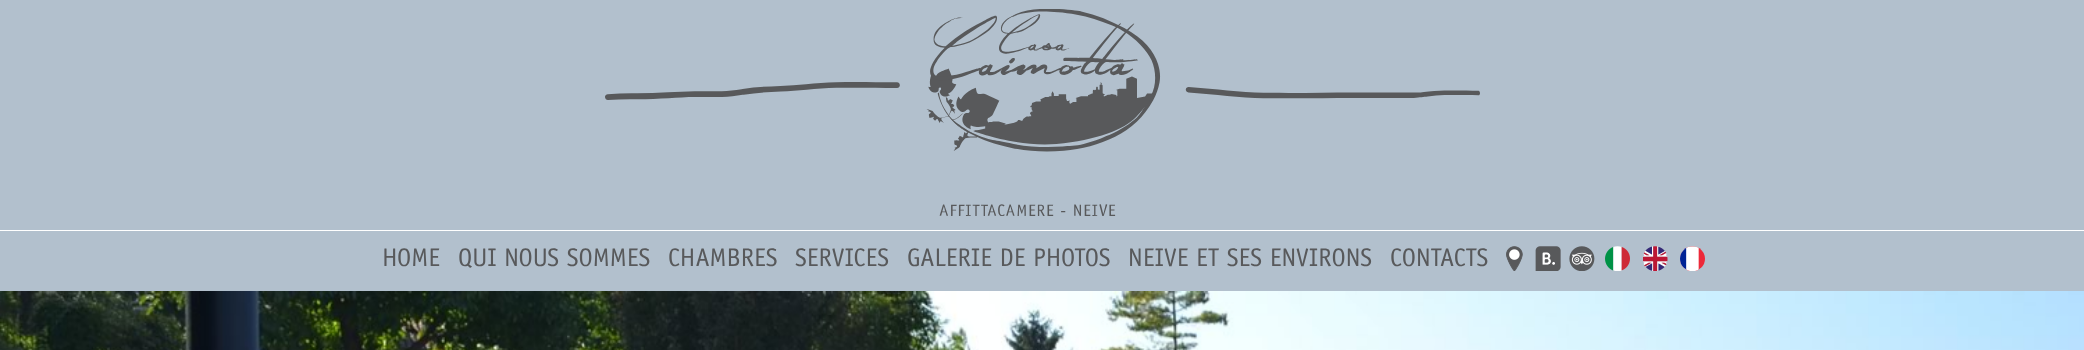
<?xml version="1.0" encoding="UTF-8"?>
<svg xmlns="http://www.w3.org/2000/svg" width="2084" height="350">
    <rect width="100%" height="100%" fill="#B2C0CD"/>
    <image x="605" y="9" width="875" height="207" href="img_01.png"/>
    <rect x="0" y="230" width="2084" height="1" fill="#FFFFFF"/>
    <text x="382" y="266" font-family="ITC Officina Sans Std" font-size="25.5" fill="#58595B">HOME</text>
    <text x="458" y="266" font-family="ITC Officina Sans Std" font-size="25.5" fill="#58595B">QUI NOUS SOMMES</text>
    <text x="668" y="266" font-family="ITC Officina Sans Std" font-size="25.5" fill="#58595B">CHAMBRES</text>
    <text x="795" y="266" font-family="ITC Officina Sans Std" font-size="25.5" fill="#58595B">SERVICES</text>
    <text x="907" y="266" font-family="ITC Officina Sans Std" font-size="25.5" fill="#58595B">GALERIE DE PHOTOS</text>
    <text x="1128" y="266" font-family="ITC Officina Sans Std" font-size="25.5" fill="#58595B">NEIVE ET SES ENVIRONS</text>
    <text x="1390" y="266" font-family="ITC Officina Sans Std" font-size="25.5" fill="#58595B">CONTACTS</text>
    <image x="1506" y="246" width="17" height="25" href="img_02.png"/>
    <image x="1535" y="246" width="26" height="25" href="img_03.png"/>
    <image x="1569" y="246" width="26" height="25" href="img_04.png"/>
    <image x="1605" y="246" width="25" height="25" href="img_05.png"/>
    <image x="1643" y="246" width="25" height="25" href="img_06.png"/>
    <image x="1680" y="246" width="25" height="25" href="img_07.png"/>
    <image x="0" y="291" width="2084" height="59" href="img_08.png"/>
</svg>
